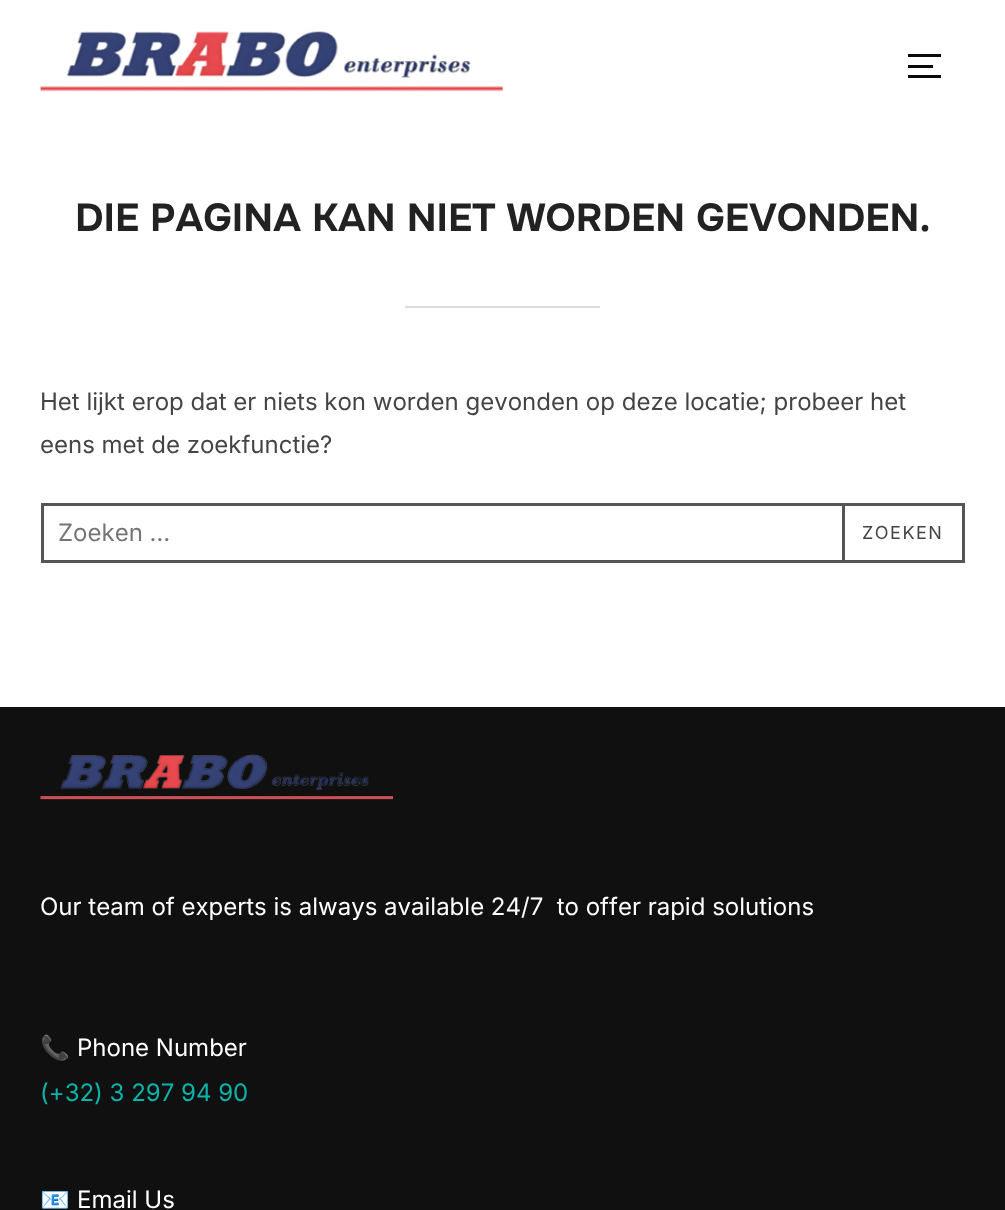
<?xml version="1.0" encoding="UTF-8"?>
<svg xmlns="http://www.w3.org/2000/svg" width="1005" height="1210">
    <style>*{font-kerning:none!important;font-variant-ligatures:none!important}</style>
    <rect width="100%" height="100%" fill="#FFFFFF"/>
    <image x="40" y="31" width="463" height="61" href="img_01.png"/>
    <rect x="908" y="54" width="33" height="3" fill="#0A0A0A"/>
    <rect x="908" y="65" width="25" height="3" fill="#0A0A0A"/>
    <rect x="908" y="75" width="33" height="3" fill="#0A0A0A"/>
    <text x="75" y="231" font-family="Onest" font-size="39" font-weight="700" fill="#222222">DIE PAGINA KAN NIET WORDEN GEVONDEN.</text>
    <rect x="405" y="306" width="195" height="2" fill="#DBDBDB"/>
    <text font-family="Inter" font-size="24" fill="#444444">
        <tspan x="40" y="410">Het lijkt erop dat er niets kon worden gevonden op deze locatie; probeer het</tspan>
        <tspan x="40" y="453">eens met de zoekfunctie?</tspan>
    </text>
    <rect x="42.5" y="504.5" width="921" height="57" fill="none" stroke="#565555" stroke-width="3"/>
    <text x="58" y="541" font-family="Inter" font-size="24" fill="#757575">Zoeken …</text>
    <rect x="843.5" y="504.5" width="120" height="57" fill="none" stroke="#565555" stroke-width="3"/>
    <text x="862" y="539" font-family="Inter" font-size="18" letter-spacing="1.5" fill="#444444">ZOEKEN</text>
    <rect x="0" y="707" width="1005" height="503" fill="#101010"/>
    <image x="40" y="754" width="353" height="46" href="img_02.png"/>
    <text x="40" y="915" font-family="Inter" font-size="24" fill="#FFFFFF" xml:space="preserve">Our team of experts is always available 24/7  to offer rapid solutions</text>
    <text x="40" y="1056" font-family="Noto Color Emoji" font-size="24" fill="#FFFFFF">📞</text>
    <text x="77" y="1056" font-family="Inter" font-size="24" fill="#FFFFFF">Phone Number</text>
    <text x="40" y="1101" font-family="Inter" font-size="24" fill="#0BB4AA">(+32) 3 297 94 90</text>
    <text x="40" y="1208" font-family="Noto Color Emoji" font-size="24" fill="#FFFFFF">📧</text>
    <text x="77" y="1208" font-family="Inter" font-size="24" fill="#FFFFFF">Email Us</text>
</svg>
